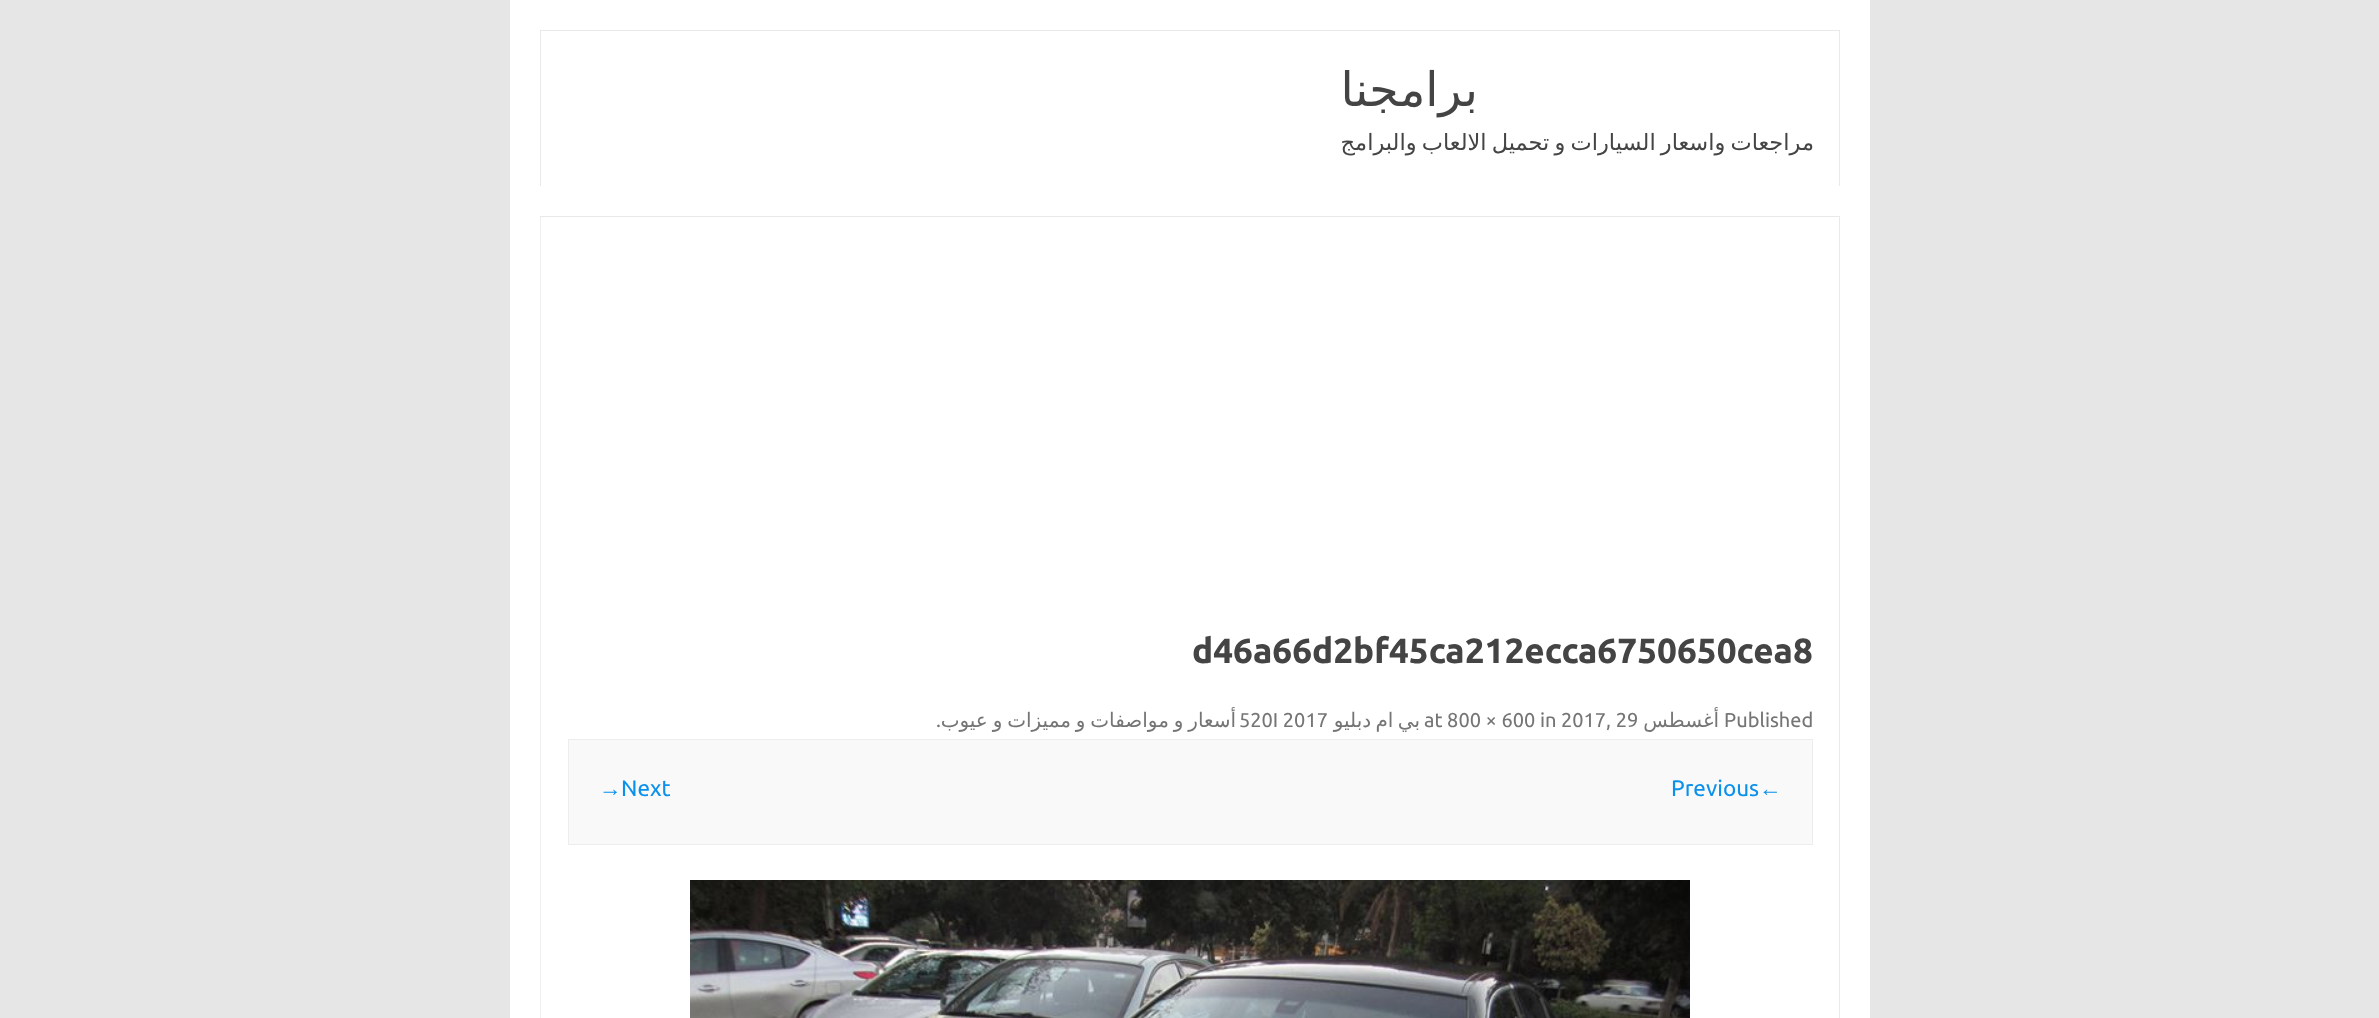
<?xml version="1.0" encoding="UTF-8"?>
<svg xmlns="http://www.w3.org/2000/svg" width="2379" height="1018">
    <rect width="100%" height="100%" fill="#E6E6E6"/>
    <rect x="510" y="0" width="1360" height="1018" fill="#FFFFFF"/>
    <rect x="540" y="30" width="1300" height="1" fill="#E9E9E9"/>
    <rect x="1839" y="30" width="1" height="156" fill="#E9E9E9"/>
    <rect x="540" y="30" width="1" height="156" fill="#E9E9E9"/>
    <text x="1478" y="106" font-family="DejaVu Sans" font-size="47.5" direction="rtl" fill="#444444">برامجنا</text>
    <text x="1814" y="150" word-spacing="-2" font-family="DejaVu Sans" font-size="22.5" direction="rtl" fill="#444444">مراجعات واسعار السيارات و تحميل الالعاب والبرامج</text>
    <rect x="540.5" y="216.5" width="1299" height="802" fill="none" stroke="#E9E9E9"/>
    <rect x="540" y="218" width="1" height="800" fill="#F1F1F1"/>
    <text x="1192" y="663" font-family="Ubuntu" font-size="35" font-weight="700" fill="#444444">d46a66d2bf45ca212ecca6750650cea8</text>
    <text x="1724" y="727" font-family="Ubuntu" font-size="20" fill="#757575">Published</text>
    <text x="1719" y="727" font-family="DejaVu Sans" font-size="20" direction="rtl" fill="#757575">أغسطس</text>
    <text x="1561" y="727" font-family="Ubuntu" font-size="20" fill="#757575">2017, 29</text>
    <text x="1424" y="727" font-family="Ubuntu" font-size="20" fill="#757575">at 800 × 600 in</text>
    <text x="1420" y="727" word-spacing="-2" font-family="DejaVu Sans" font-size="20" direction="rtl" fill="#757575">بي ام دبليو</text>
    <text x="1236" y="727" word-spacing="-1.5" font-family="DejaVu Sans" font-size="20" direction="rtl" fill="#757575">أسعار و مواصفات و مميزات و عيوب</text>
    <text x="1239" y="727" font-family="Ubuntu" font-size="20" fill="#757575">520I 2017</text>
    <text x="936" y="727" font-family="Ubuntu" font-size="20" fill="#757575">.</text>
    <rect x="568.5" y="739.5" width="1244" height="105" fill="#F9F9F9" stroke="#EDEDED"/>
    <text x="1759" y="796" font-family="Liberation Sans" font-size="22.5" fill="#0B91EA">←</text>
    <text x="1671" y="796" font-family="Ubuntu" font-size="22.5" fill="#0B91EA">Previous</text>
    <text x="621" y="796" font-family="Ubuntu" font-size="22.5" fill="#0B91EA">Next</text>
    <text x="599" y="796" font-family="Liberation Sans" font-size="22.5" fill="#0B91EA">→</text>
    <image x="690" y="880" width="1000" height="138" href="img_01.png"/>
</svg>
